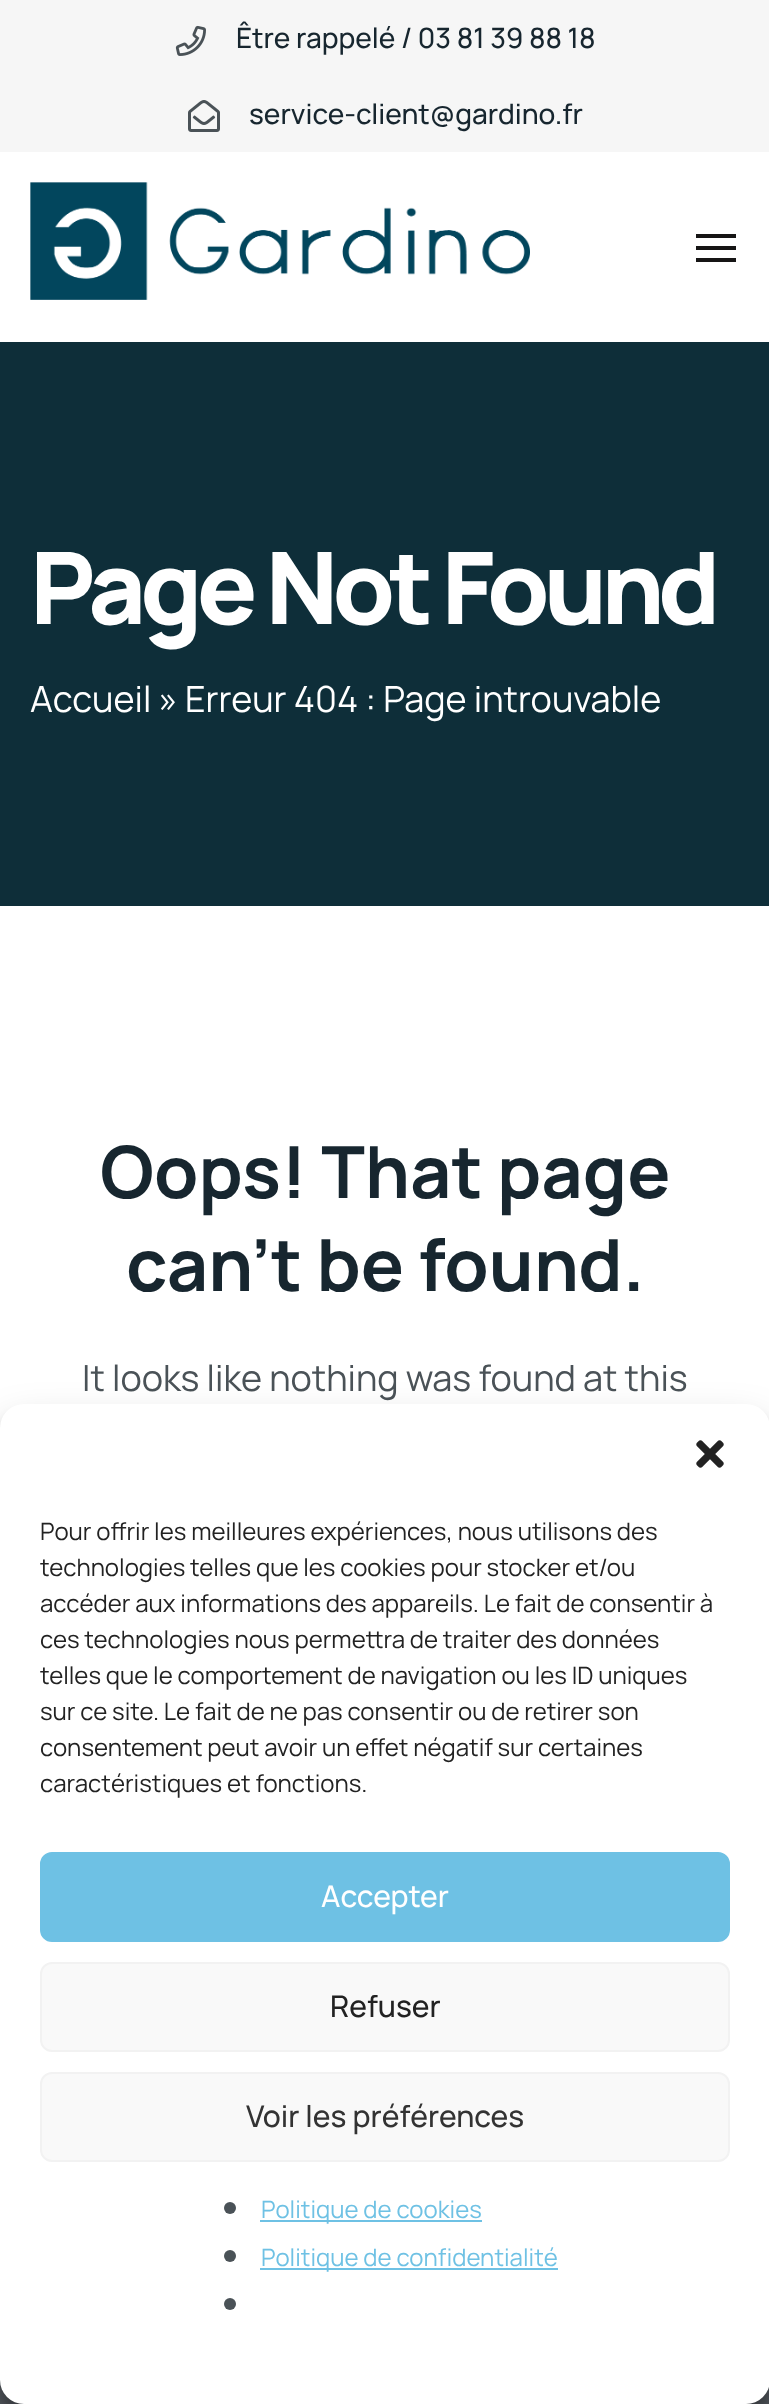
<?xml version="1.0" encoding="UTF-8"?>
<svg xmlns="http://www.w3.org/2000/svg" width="769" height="2404">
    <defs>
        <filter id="blur1" x="-50%" y="-200%" width="200%" height="500%"><feGaussianBlur stdDeviation="6"/></filter>
        <filter id="blur2" x="-50%" y="-200%" width="200%" height="500%"><feGaussianBlur stdDeviation="20"/></filter>
    </defs>
    <rect width="100%" height="100%" fill="#FFFFFF"/>
    <rect x="0" y="0" width="769" height="152" fill="#F6F6F6"/>
    <image x="175" y="25" width="31" height="31" href="img_01.png"/>
    <text x="236" y="48" font-family="Manrope" font-size="28" font-weight="500" fill="#17262F">Être rappelé / 03 81 39 88 18</text>
    <image x="188" y="100" width="32" height="32" href="img_02.png"/>
    <text x="249" y="124" font-family="Manrope" font-size="28" font-weight="500" fill="#17262F">service-client@gardino.fr</text>
    <image x="30" y="182" width="500" height="118" href="img_03.png"/>
    <rect x="696" y="234" width="40" height="4" fill="#161515"/>
    <rect x="696" y="246" width="40" height="4" fill="#161515"/>
    <rect x="696" y="258" width="40" height="4" fill="#161515"/>
    <rect x="0" y="342" width="769" height="564" fill="#0E2E39"/>
    <text x="30" y="624" font-family="Manrope" font-size="100" font-weight="800" letter-spacing="-6" fill="#FFFFFF">Page Not Found</text>
    <text x="30" y="712" font-family="Manrope" font-size="36" fill="#FFFFFF">Accueil » Erreur 404 : Page introuvable</text>
    <text x="100" y="1198" font-family="Manrope" font-size="72" font-weight="700" fill="#17262F">Oops! That page</text>
    <text x="126" y="1291" font-family="Manrope" font-size="72" font-weight="700" fill="#17262F">can’t be found.</text>
    <text x="82" y="1391" font-family="Manrope" font-size="36" fill="#4A5257">It looks like nothing was found at this</text>
    <rect x="0" y="2380" width="769" height="24" fill="#54595F"/>
    <rect x="0" y="1416" width="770" height="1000" rx="24" fill="#000000" fill-opacity="0.23" filter="url(#blur1)"/>
    <rect x="0" y="1424" width="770" height="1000" rx="24" fill="#000000" fill-opacity="0.19" filter="url(#blur2)"/>
    <rect x="0" y="1404" width="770" height="1000" rx="24" fill="#FFFFFF"/>
    <image x="696" y="1440" width="28" height="28" href="img_04.png"/>
    <text font-family="Manrope" font-size="24" fill="#222222">
        <tspan x="40" y="1540">Pour offrir les meilleures expériences, nous utilisons des</tspan>
        <tspan x="40" y="1576">technologies telles que les cookies pour stocker et/ou</tspan>
        <tspan x="40" y="1612">accéder aux informations des appareils. Le fait de consentir à</tspan>
        <tspan x="40" y="1648">ces technologies nous permettra de traiter des données</tspan>
        <tspan x="40" y="1684">telles que le comportement de navigation ou les ID uniques</tspan>
        <tspan x="40" y="1720">sur ce site. Le fait de ne pas consentir ou de retirer son</tspan>
        <tspan x="40" y="1756">consentement peut avoir un effet négatif sur certaines</tspan>
        <tspan x="40" y="1792">caractéristiques et fonctions.</tspan>
    </text>
    <rect x="41" y="1853" width="688" height="88" rx="11" fill="#6EC1E4" stroke="#6EC1E4" stroke-width="2"/>
    <text x="321" y="1907" font-family="Manrope" font-size="30" font-weight="500" fill="#FFFFFF">Accepter</text>
    <rect x="41" y="1963" width="688" height="88" rx="11" fill="#F9F9F9" stroke="#F2F2F2" stroke-width="2"/>
    <text x="330" y="2017" font-family="Manrope" font-size="30" font-weight="500" fill="#222222">Refuser</text>
    <rect x="41" y="2073" width="688" height="88" rx="11" fill="#F9F9F9" stroke="#F2F2F2" stroke-width="2"/>
    <text x="246" y="2127" font-family="Manrope" font-size="30" font-weight="500" fill="#333333">Voir les préférences</text>
    <circle cx="230" cy="2208" r="6" fill="#4A5257"/>
    <rect x="260" y="2220" width="222" height="2" fill="#6EC1E4"/>
    <text x="261" y="2218" font-family="Manrope" font-size="24" fill="#6EC1E4">Politique de cookies</text>
    <circle cx="230" cy="2256" r="6" fill="#4A5257"/>
    <rect x="260" y="2268" width="298" height="2" fill="#6EC1E4"/>
    <text x="261" y="2266" font-family="Manrope" font-size="24" fill="#6EC1E4">Politique de confidentialité</text>
    <circle cx="230" cy="2304" r="6" fill="#4A5257"/>
</svg>
